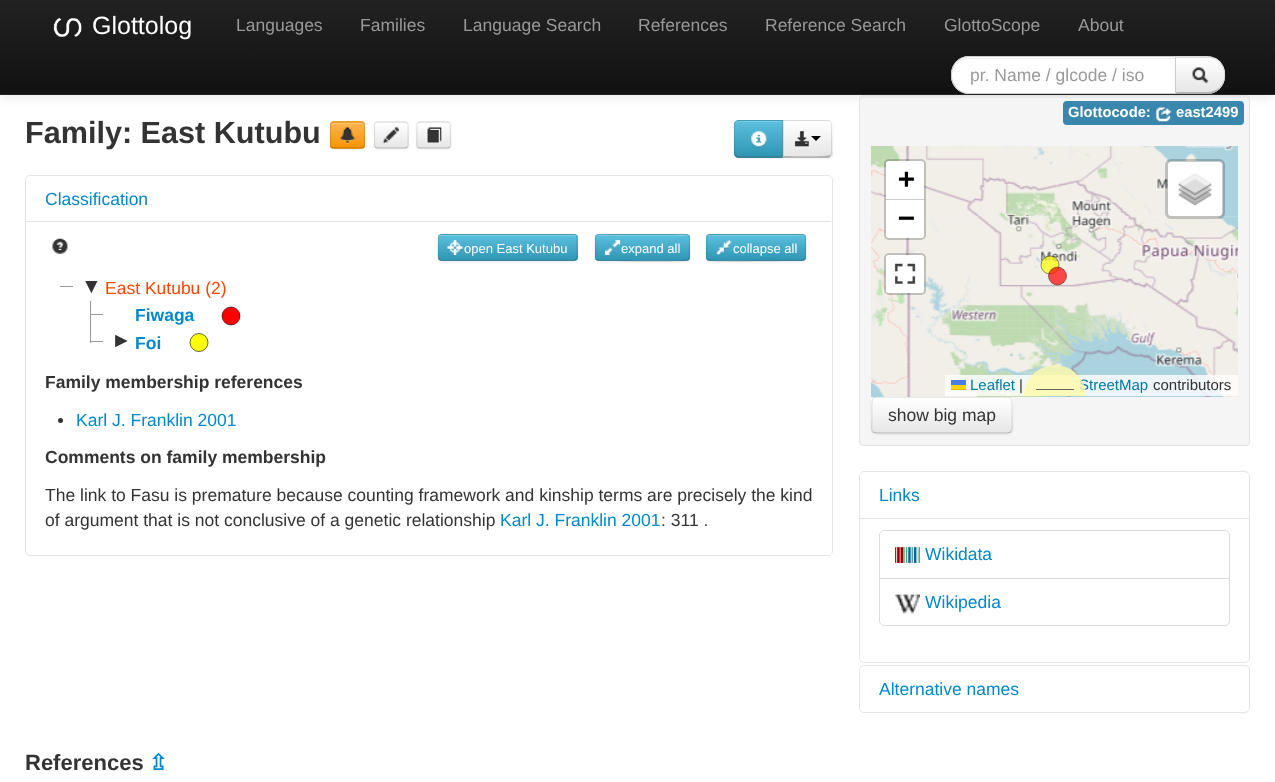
<?xml version="1.0" encoding="UTF-8"?>
<svg xmlns="http://www.w3.org/2000/svg" width="1275" height="782">
    <defs>
        <filter id="blur1" x="-50%" y="-200%" width="200%" height="500%"><feGaussianBlur stdDeviation="6"/></filter>
        <linearGradient id="g1" gradientUnits="userSpaceOnUse" x1="638" y1="0" x2="638" y2="94"><stop offset="0" stop-color="#222222"/><stop offset="1" stop-color="#111111"/></linearGradient>
        <clipPath id="clip1"><path d="M 1175 56 H 1207 C 1217 56 1225 64 1225 74 V 76 C 1225 86 1217 94 1207 94 H 1175 Z"/></clipPath>
        <linearGradient id="g2" gradientUnits="userSpaceOnUse" x1="1200" y1="58" x2="1200" y2="93"><stop offset="0" stop-color="#FFFFFF"/><stop offset="1" stop-color="#E6E6E6"/></linearGradient>
        <filter id="blur2" x="-50%" y="-200%" width="200%" height="500%"><feGaussianBlur stdDeviation="1"/></filter>
        <clipPath id="clip2"><rect x="330" y="121" width="35" height="28" rx="4"/></clipPath>
        <linearGradient id="g3" gradientUnits="userSpaceOnUse" x1="348" y1="123" x2="348" y2="148"><stop offset="0" stop-color="#FBB450"/><stop offset="1" stop-color="#F89406"/></linearGradient>
        <clipPath id="clip3"><rect x="374" y="121" width="35" height="28" rx="4"/></clipPath>
        <linearGradient id="g4" gradientUnits="userSpaceOnUse" x1="391" y1="123" x2="391" y2="148"><stop offset="0" stop-color="#FFFFFF"/><stop offset="1" stop-color="#E6E6E6"/></linearGradient>
        <clipPath id="clip4"><rect x="416" y="121" width="35" height="28" rx="4"/></clipPath>
        <linearGradient id="g5" gradientUnits="userSpaceOnUse" x1="434" y1="123" x2="434" y2="148"><stop offset="0" stop-color="#FFFFFF"/><stop offset="1" stop-color="#E6E6E6"/></linearGradient>
        <clipPath id="clip5"><path d="M 739 120 H 784 V 158 H 739 C 736 158 734 156 734 153 V 125 C 734 122 736 120 739 120 Z"/></clipPath>
        <linearGradient id="g6" gradientUnits="userSpaceOnUse" x1="759" y1="121" x2="759" y2="156"><stop offset="0" stop-color="#5BC0DE"/><stop offset="1" stop-color="#2F96B4"/></linearGradient>
        <clipPath id="clip6"><path d="M 783 120 H 828 C 831 120 833 122 833 125 V 153 C 833 156 831 158 828 158 H 783 Z"/></clipPath>
        <linearGradient id="g7" gradientUnits="userSpaceOnUse" x1="808" y1="121" x2="808" y2="156"><stop offset="0" stop-color="#FFFFFF"/><stop offset="1" stop-color="#E6E6E6"/></linearGradient>
        <clipPath id="clip7"><rect x="438" y="234" width="140" height="27" rx="4"/></clipPath>
        <linearGradient id="g8" gradientUnits="userSpaceOnUse" x1="508" y1="235" x2="508" y2="260"><stop offset="0" stop-color="#5BC0DE"/><stop offset="1" stop-color="#2F96B4"/></linearGradient>
        <clipPath id="clip8"><rect x="595" y="234" width="95" height="27" rx="4"/></clipPath>
        <linearGradient id="g9" gradientUnits="userSpaceOnUse" x1="643" y1="235" x2="643" y2="260"><stop offset="0" stop-color="#5BC0DE"/><stop offset="1" stop-color="#2F96B4"/></linearGradient>
        <clipPath id="clip9"><rect x="706" y="234" width="100" height="27" rx="4"/></clipPath>
        <linearGradient id="g10" gradientUnits="userSpaceOnUse" x1="756" y1="235" x2="756" y2="260"><stop offset="0" stop-color="#5BC0DE"/><stop offset="1" stop-color="#2F96B4"/></linearGradient>
        <clipPath id="clip10"><rect x="871" y="396" width="142" height="38" rx="5"/></clipPath>
        <linearGradient id="g11" gradientUnits="userSpaceOnUse" x1="942" y1="398" x2="942" y2="433"><stop offset="0" stop-color="#FFFFFF"/><stop offset="1" stop-color="#E6E6E6"/></linearGradient>
    </defs>
    <rect width="100%" height="100%" fill="#FFFFFF"/>
    <rect x="0" y="1" width="1275" height="95" fill="#000000" fill-opacity="0.1" filter="url(#blur1)"/>
    <rect x="0" y="0" width="1275" height="94" fill="url(#g1)"/>
    <rect x="0" y="94" width="1275" height="1" fill="#252525"/>
    <image x="53" y="18" width="29" height="19" href="img_01.png"/>
    <text x="92" y="34" font-family="Liberation Sans" font-size="25" fill="#FFFFFF">Glottolog</text>
    <text x="236" y="31" font-family="Liberation Sans" font-size="17.5" fill="#999999">Languages</text>
    <text x="360" y="31" font-family="Liberation Sans" font-size="17.5" fill="#999999">Families</text>
    <text x="463" y="31" font-family="Liberation Sans" font-size="17.5" fill="#999999">Language Search</text>
    <text x="638" y="31" font-family="Liberation Sans" font-size="17.5" fill="#999999">References</text>
    <text x="765" y="31" font-family="Liberation Sans" font-size="17.5" fill="#999999">Reference Search</text>
    <text x="944" y="31" font-family="Liberation Sans" font-size="17.5" fill="#999999">GlottoScope</text>
    <text x="1078" y="31" font-family="Liberation Sans" font-size="17.5" fill="#999999">About</text>
    <path d="M 1175 56 H 1207 C 1217 56 1225 64 1225 74 V 76 C 1225 86 1217 94 1207 94 H 1175 Z" fill="#F5F5F5"/>
    <g clip-path="url(#clip1)">
        <rect x="1176" y="58" width="49" height="35" fill="url(#g2)"/>
    </g>
    <path d="M 1175 56 H 1211 C 1214 57 1217 59 1220 61 L 1219 62 C 1216 60 1212 58 1208 58 H 1177 Z" fill="#000000" fill-opacity="0.1"/>
    <path d="M 1225 76 C 1225 70.5 1224 65.5 1220 61.5 L 1219 62.5 C 1226 69 1226 81 1219 87.5 L 1220 88.5 C 1223 85.5 1225 81 1225 76 Z" fill="#000000" fill-opacity="0.1"/>
    <path d="M 1211 94 H 1175 L 1177 92 H 1208 C 1212 92 1216 90 1219 88 L 1220 89 C 1217 91 1214 93 1211 94 Z" fill="#B3B3B3"/>
    <path d="M 1176 58 H 1177 L 1175 56 V 94 L 1177 92 H 1176 Z" fill="#000000" fill-opacity="0.1"/>
    <path d="M 969 56 H 1176 V 94 H 969 C 959 94 951 86 951 76 V 74 C 951 64 959 56 969 56 Z" fill="#FFFFFF"/>
    <path d="M 969 59 H 1175 V 58 H 969 C 961 58 955 63 953 70 C 956 64 961 59 969 59 Z" fill="#ECECEC"/>
    <path d="M 969 56.5 H 1175.5 V 93.5 H 969 C 959.5 93.5 951.5 85.5 951.5 76 V 74 C 951.5 64.5 959.5 56.5 969 56.5 Z" fill="none" stroke="#CCCCCC"/>
    <text x="970" y="81" font-family="Liberation Sans" font-size="17.5" fill="#999999">pr. Name / glcode / iso</text>
    <image x="1192" y="67" width="17" height="17" href="img_02.png"/>
    <text x="25" y="143" font-family="Liberation Sans" font-size="30.6" font-weight="700" fill="#333333">Family: East Kutubu</text>
    <rect x="330" y="123" width="35" height="27" rx="4" fill="#000000" fill-opacity="0.05" filter="url(#blur2)"/>
    <rect x="330" y="121" width="35" height="28" rx="4" fill="#FAA732"/>
    <g clip-path="url(#clip2)">
        <rect x="330" y="123" width="35" height="25" fill="url(#g3)"/>
    </g>
    <path d="M 334 124 H 361 C 363 124 364 125 364 126 C 364 122 359.5 123 357 123 H 338 C 335.5 123 331 122 331 126 C 331 125 332 124 334 124 Z" fill="#FCC272"/>
    <path d="M 363.5 147 C 363 148 362 148 361 148 H 334 C 333 148 332 148 331.5 147" fill="none" stroke="#000000" stroke-opacity="0.25" stroke-width="1.2"/>
    <path d="M 331.5 147 C 331 146.5 330.5 146 330.5 145 V 125 C 330.5 124 331 123.5 331.5 123 C 332 122 333 122 334 122 H 361 C 362 122 363 122 363.5 123 C 364 123.5 364.5 124 364.5 125 V 145 C 364.5 146 364 146.5 363.5 147" fill="none" stroke="#000000" stroke-opacity="0.1" stroke-width="1.2"/>
    <image x="340" y="127" width="16" height="17" href="img_03.png"/>
    <rect x="374" y="123" width="35" height="27" rx="4" fill="#000000" fill-opacity="0.05" filter="url(#blur2)"/>
    <rect x="374" y="121" width="35" height="28" rx="4" fill="#F5F5F5"/>
    <g clip-path="url(#clip3)">
        <rect x="374" y="123" width="35" height="25" fill="url(#g4)"/>
    </g>
    <path d="M 407 147 C 406.5 148 406 148 405 148 H 377.5 C 376.5 148 376 148 375.5 147" fill="none" stroke="#B3B3B3" stroke-width="1.2"/>
    <path d="M 375.5 147 C 374.5 146.5 374.5 146 374.5 145 V 125 C 374.5 124 374.5 123.5 375.5 123 C 376 122 376.5 122 377.5 122 H 405 C 406 122 406.5 122 407 123 C 408 123.5 408 124 408 125 V 145 C 408 146 408 146.5 407 147" fill="none" stroke="#000000" stroke-opacity="0.1" stroke-width="1.2"/>
    <image x="382" y="126" width="17" height="18" href="img_04.png"/>
    <rect x="416" y="123" width="35" height="27" rx="4" fill="#000000" fill-opacity="0.05" filter="url(#blur2)"/>
    <rect x="416" y="121" width="35" height="28" rx="4" fill="#F5F5F5"/>
    <g clip-path="url(#clip4)">
        <rect x="416" y="123" width="35" height="25" fill="url(#g5)"/>
    </g>
    <path d="M 449.5 147 C 449 148 448.5 148 447.5 148 H 420 C 419 148 418.5 148 418 147" fill="none" stroke="#B3B3B3" stroke-width="1.2"/>
    <path d="M 418 147 C 417 146.5 417 146 417 145 V 125 C 417 124 417 123.5 418 123 C 418.5 122 419 122 420 122 H 447.5 C 448.5 122 449 122 449.5 123 C 450.5 123.5 450.5 124 450.5 125 V 145 C 450.5 146 450.5 146.5 449.5 147" fill="none" stroke="#000000" stroke-opacity="0.1" stroke-width="1.2"/>
    <image x="427" y="127" width="15" height="16" href="img_05.png"/>
    <rect x="734" y="121" width="50" height="38" rx="5" fill="#000000" fill-opacity="0.05" filter="url(#blur2)"/>
    <path d="M 739 120 H 784 V 158 H 739 C 736 158 734 156 734 153 V 125 C 734 122 736 120 739 120 Z" fill="#49AFCD"/>
    <g clip-path="url(#clip5)">
        <rect x="734" y="121" width="49" height="35" fill="url(#g6)"/>
    </g>
    <path d="M 739 122 H 782 V 156 H 783 V 121 H 739 C 737 121 735 123 735 125 V 126 C 735 124 737 122 739 122 Z" fill="#FFFFFF" fill-opacity="0.2"/>
    <path d="M 739 120 C 737 120 736 121 735 122 H 736 C 737 122 738 121 739 121 H 782 V 122 L 784 120 Z" fill="#000000" fill-opacity="0.1"/>
    <path d="M 784 120 L 782 122 V 156 L 784 157.5 Z" fill="#000000" fill-opacity="0.1"/>
    <path d="M 784 158 H 737 L 735 156 L 736 155 C 737 156 738 156 739 156 H 782 Z" fill="#000000" fill-opacity="0.25"/>
    <path d="M 735.5 121.5 C 734.5 122.5 734 123.5 734 125 V 152 C 734 153.5 734.5 155 735.5 156 L 736 155 C 735.5 154.5 735 153.5 735 152 V 125 C 735 124 735.5 123 736 122.5 Z" fill="#000000" fill-opacity="0.1"/>
    <image x="751" y="131" width="16" height="17" href="img_06.png"/>
    <rect x="783" y="121" width="50" height="38" rx="5" fill="#000000" fill-opacity="0.05" filter="url(#blur2)"/>
    <path d="M 783 120 H 828 C 831 120 833 122 833 125 V 153 C 833 156 831 158 828 158 H 783 Z" fill="#F5F5F5"/>
    <g clip-path="url(#clip6)">
        <rect x="783" y="121" width="50" height="35" fill="url(#g7)"/>
    </g>
    <rect x="784" y="151" width="1" height="5" fill="#FFFFFF" fill-opacity="0.12"/>
    <path d="M 784 121 H 829 L 830 122 H 831 L 829 120 H 782 L 784 122 Z" fill="#000000" fill-opacity="0.1"/>
    <path d="M 831 121.5 C 831.5 122.5 832 123.5 832 125 V 152 C 832 153.5 831.5 155 831 156 L 830 155 C 830.5 154.5 831 153.5 831 152 V 125 C 831 124 831 123 830 122 Z" fill="#000000" fill-opacity="0.1"/>
    <path d="M 831 156 L 829 158 H 782 L 784 156 C 789 156 829 157 830 155 Z" fill="#B3B3B3"/>
    <path d="M 782.5 157.5 L 784 156 V 121.5 L 782.5 120 Z" fill="#000000" fill-opacity="0.1"/>
    <image x="794" y="131" width="15" height="16" href="img_07.png"/>
    <path d="M 811 136 H 821 L 816 141 Z" fill="#000000"/>
    <rect x="25.5" y="175.5" width="807" height="380" rx="4.5" fill="none" stroke="#E5E5E5"/>
    <text x="45" y="205" font-family="Liberation Sans" font-size="17.5" fill="#0088CC">Classification</text>
    <rect x="26" y="221" width="805" height="1" fill="#E5E5E5"/>
    <image x="52" y="238" width="16" height="16" href="img_08.png"/>
    <rect x="438" y="235" width="140" height="28" rx="4" fill="#000000" fill-opacity="0.05" filter="url(#blur2)"/>
    <rect x="438" y="234" width="140" height="27" rx="4" fill="#49AFCD"/>
    <g clip-path="url(#clip7)">
        <rect x="438" y="235" width="140" height="25" fill="url(#g8)"/>
    </g>
    <path d="M 441 236 H 574 C 575 236 576 237 576 239 V 238 C 576 236 575 235 574 235 H 442 C 440 235 439 236 439 238 V 239 C 439 237 440 236 441 236 Z" fill="#7BCCE4"/>
    <path d="M 576 259.5 L 574 260.5 H 441 L 439 259.5" fill="none" stroke="#000000" stroke-opacity="0.25" stroke-width="1.2"/>
    <path d="M 439 259.5 C 437 257.5 438 250 438 247.5 V 241 C 438 238.5 437.5 234.5 441 234.5 H 574 C 577.5 234.5 577 238.5 577 241 V 247.5 C 577 250 578 257.5 576 259.5" fill="none" stroke="#000000" stroke-opacity="0.1" stroke-width="1.2"/>
    <image x="447" y="239" width="16" height="18" href="img_09.png"/>
    <text x="464" y="253" font-family="Liberation Sans" font-size="13" fill="#FFFFFF">open East Kutubu</text>
    <rect x="595" y="235" width="95" height="28" rx="4" fill="#000000" fill-opacity="0.05" filter="url(#blur2)"/>
    <rect x="595" y="234" width="95" height="27" rx="4" fill="#49AFCD"/>
    <g clip-path="url(#clip8)">
        <rect x="595" y="235" width="95" height="25" fill="url(#g9)"/>
    </g>
    <path d="M 599 236 H 686 C 688 236 689 237 689 239 C 689 231 677 235 672 235 H 613 C 608 235 596 231 596 239 C 596 237 597 236 599 236 Z" fill="#FFFFFF" fill-opacity="0.2"/>
    <path d="M 688.5 259.5 L 688 260 C 686 261.5 621.5 260.5 613.5 260.5 H 599 L 596.5 259.5" fill="none" stroke="#000000" stroke-opacity="0.25" stroke-width="1.2"/>
    <path d="M 596.5 259.5 C 594.5 257.5 595.5 253 595.5 251 C 595.5 231 592.5 234.5 613.5 234.5 H 671.5 C 692.5 234.5 689.5 231 689.5 251 C 689.5 253 690.5 257.5 688.5 259.5" fill="none" stroke="#000000" stroke-opacity="0.1" stroke-width="1.2"/>
    <image x="604" y="239" width="17" height="18" href="img_10.png"/>
    <text x="621" y="253" font-family="Liberation Sans" font-size="13" fill="#FFFFFF">expand all</text>
    <rect x="706" y="235" width="100" height="28" rx="4" fill="#000000" fill-opacity="0.05" filter="url(#blur2)"/>
    <rect x="706" y="234" width="100" height="27" rx="4" fill="#49AFCD"/>
    <g clip-path="url(#clip9)">
        <rect x="706" y="235" width="100" height="25" fill="url(#g10)"/>
    </g>
    <path d="M 710 236 H 802 C 804 236 805 237 805 239 V 238 C 805 236 804 235 802 235 H 710 C 709 235 708 236 708 238 V 239 C 708 237 709 236 710 236 Z" fill="#7BCCE4"/>
    <path d="M 804.5 259.5 L 802.5 260.5 H 787 C 778.5 260.5 710 261.5 708 260 V 259.5" fill="none" stroke="#000000" stroke-opacity="0.25" stroke-width="1.2"/>
    <path d="M 708 259.5 C 705.5 257.5 707 253 707 251 C 707 231 703.5 234.5 725.5 234.5 H 787 C 809 234.5 805.5 231 805.5 251 C 805.5 253 807 257.5 804.5 259.5" fill="none" stroke="#000000" stroke-opacity="0.1" stroke-width="1.2"/>
    <image x="716" y="239" width="16" height="17" href="img_11.png"/>
    <text x="733" y="253" font-family="Liberation Sans" font-size="13" fill="#FFFFFF">collapse all</text>
    <rect x="60" y="286" width="13" height="1" fill="#999999"/>
    <text x="81" y="293" font-family="Liberation Sans" font-size="21" fill="#333333">▼</text>
    <text x="105" y="294" font-family="Liberation Sans" font-size="17.5" fill="#FF4500">East Kutubu (2)</text>
    <rect x="90" y="314" width="13" height="1" fill="#999999"/>
    <rect x="90" y="301" width="1" height="15" fill="#999999"/>
    <text x="135" y="321" font-family="Liberation Sans" font-size="17.5" font-weight="700" fill="#0088CC">Fiwaga</text>
    <circle cx="231" cy="316" r="9" fill="#FF0000" stroke="#000000" stroke-width="0.6"/>
    <rect x="90" y="341" width="13" height="1" fill="#999999"/>
    <rect x="90" y="316" width="1" height="27" fill="#999999"/>
    <text x="111" y="347" font-family="Liberation Sans" font-size="21" fill="#333333">►</text>
    <text x="135" y="349" font-family="Liberation Sans" font-size="17.5" font-weight="700" fill="#0088CC">Foi</text>
    <circle cx="199" cy="342.5" r="9" fill="#FFFF00" stroke="#000000" stroke-width="0.6"/>
    <text x="45" y="388" font-family="Liberation Sans" font-size="17.5" font-weight="700" fill="#333333">Family membership references</text>
    <circle cx="60.5" cy="420.5" r="2.5" fill="#333333"/>
    <text x="76" y="426" font-family="Liberation Sans" font-size="17.5" fill="#0088CC">Karl J. Franklin 2001</text>
    <text x="45" y="463" font-family="Liberation Sans" font-size="17.5" font-weight="700" fill="#333333">Comments on family membership</text>
    <text font-family="Liberation Sans" font-size="17.5" fill="#333333">
        <tspan x="45" y="501">The link to Fasu is premature because counting framework and kinship terms are precisely the kind</tspan>
        <tspan x="45" y="526">of argument that is not conclusive of a genetic relationship</tspan>
    </text>
    <text x="500" y="526" font-family="Liberation Sans" font-size="17.5" fill="#0088CC">Karl J. Franklin 2001</text>
    <text x="661" y="526" font-family="Liberation Sans" font-size="17.5" fill="#333333">: 311 .</text>
    <rect x="859" y="95" width="391" height="351" rx="4" fill="#F5F5F5"/>
    <path d="M 862 98 H 1246 C 1248 98 1249 99 1249 100 V 97 L 1246 96 H 862 C 860 96 860 98 860 100 C 860 99 861 98 862 98 Z" fill="#E9E9E9"/>
    <rect x="859.5" y="95.5" width="390" height="350" rx="3.5" fill="none" stroke="#E3E3E3"/>
    <rect x="1063" y="101" width="181" height="24" rx="4" fill="#3A87AD"/>
    <text x="1068" y="117" font-family="Liberation Sans" font-size="14.75" font-weight="700" fill="#FFFFFF">Glottocode:</text>
    <image x="1156" y="107" width="16" height="16" href="img_12.png"/>
    <text x="1176" y="117" font-family="Liberation Sans" font-size="14.75" font-weight="700" fill="#FFFFFF">east2499</text>
    <image x="886" y="146" width="321" height="71" href="img_14.png"/>
    <rect x="871" y="398" width="142" height="37" rx="5" fill="#000000" fill-opacity="0.05" filter="url(#blur2)"/>
    <rect x="871" y="396" width="142" height="38" rx="5" fill="#F5F5F5"/>
    <g clip-path="url(#clip10)">
        <rect x="871" y="398" width="142" height="35" fill="url(#g11)"/>
    </g>
    <path d="M 1010.5 432 L 1007.5 433 H 876 L 873 432" fill="none" stroke="#B3B3B3" stroke-width="1.2"/>
    <path d="M 873 432 C 870.5 429 872 422.5 872 419.5 C 872 391.5 867.5 397 898 397 H 985.5 C 1016 397 1012 391.5 1012 419.5 C 1012 422.5 1013.5 429 1010.5 432" fill="none" stroke="#000000" stroke-opacity="0.1" stroke-width="1.2"/>
    <image x="886" y="216" width="321" height="181" href="img_17.png"/>
    <image x="871" y="146" width="16" height="71" href="img_13.png"/>
    <image x="1206" y="146" width="32" height="71" href="img_15.png"/>
    <image x="871" y="216" width="16" height="181" href="img_16.png"/>
    <image x="1206" y="216" width="32" height="181" href="img_18.png"/>
    <circle cx="1050" cy="265" r="9" fill="#FFFF00" fill-opacity="0.7" stroke="#000000" stroke-opacity="0.7" stroke-width="0.6"/>
    <circle cx="1057.5" cy="276" r="9" fill="#FF0000" fill-opacity="0.7" stroke="#000000" stroke-opacity="0.7" stroke-width="0.6"/>
    <rect x="885.5" y="160.5" width="39" height="78" rx="3.5" fill="none" stroke="#000000" stroke-opacity="0.2" stroke-width="3"/>
    <path d="M 888.5 161 H 921.5 C 923 161 924 162 924 163.5 V 200 H 886 V 163.5 C 886 162 887 161 888.5 161 Z" fill="#FFFFFF"/>
    <rect x="886" y="199" width="38" height="1" fill="#CCCCCC"/>
    <text x="898" y="188" font-family="DejaVu Sans Mono" font-size="28" font-weight="700" fill="#000000">+</text>
    <path d="M 886 200 H 924 V 235.5 C 924 237 923 238 921.5 238 H 888.5 C 887 238 886 237 886 235.5 Z" fill="#FFFFFF"/>
    <text x="898" y="227" font-family="DejaVu Sans Mono" font-size="28" font-weight="700" fill="#000000">−</text>
    <rect x="885.5" y="254.5" width="39" height="39" rx="3.5" fill="none" stroke="#000000" stroke-opacity="0.2" stroke-width="3"/>
    <rect x="886" y="255" width="38" height="38" rx="2.5" fill="#FFFFFF"/>
    <image x="894" y="263" width="22" height="21" href="img_19.png"/>
    <rect x="1168" y="161" width="55" height="55" rx="4" fill="#FFFFFF"/>
    <rect x="1166.5" y="160.5" width="57" height="57" rx="4.5" fill="none" stroke="#000000" stroke-opacity="0.2" stroke-width="3"/>
    <image x="1178" y="173" width="34" height="32" href="img_20.png"/>
    <rect x="945" y="375" width="293" height="21" fill="#FFFFFF" fill-opacity="0.8"/>
    <text x="1079" y="390" font-family="Liberation Sans" font-size="15" fill="#0078A8">StreetMap</text>
    <path d="M 1055 365 C 1072 365 1086 379 1086 396 H 1024 C 1024 379 1038 365 1055 365 Z" fill="#FFFAAA" fill-opacity="0.8"/>
    <rect x="1036" y="389" width="38" height="1" fill="#555555" fill-opacity="0.9"/>
    <text x="970" y="390" font-family="Liberation Sans" font-size="15" fill="#0078A8">Leaflet</text>
    <rect x="951" y="380" width="15" height="5" fill="#4C7BE1"/>
    <rect x="951" y="385" width="15" height="4" fill="#FFD500"/>
    <rect x="951" y="389" width="15" height="1" fill="#E0BC00"/>
    <text x="1019" y="390" font-family="Liberation Sans" font-size="15" fill="#333333">|</text>
    <text x="1153" y="390" font-family="Liberation Sans" font-size="15" fill="#333333">contributors</text>
    <text x="888" y="421" font-family="Liberation Sans" font-size="17.5" fill="#333333">show big map</text>
    <rect x="859.5" y="471.5" width="390" height="191" rx="4.5" fill="none" stroke="#E5E5E5"/>
    <text x="879" y="501" font-family="Liberation Sans" font-size="17.5" fill="#0088CC">Links</text>
    <rect x="860" y="518" width="389" height="1" fill="#E5E5E5"/>
    <path d="M 884 530.5 H 1225 C 1227.5 530.5 1229.5 532.5 1229.5 535 V 578.5 H 879.5 V 535 C 879.5 532.5 881.5 530.5 884 530.5 Z" fill="none" stroke="#DDDDDD"/>
    <image x="895" y="547" width="25" height="16" href="img_21.png"/>
    <text x="925" y="560" font-family="Liberation Sans" font-size="17.5" fill="#0088CC">Wikidata</text>
    <path d="M 879.5 578.5 H 1229.5 V 621 C 1229.5 623.5 1227.5 625.5 1225 625.5 H 884 C 881.5 625.5 879.5 623.5 879.5 621 Z" fill="none" stroke="#DDDDDD"/>
    <image x="895" y="594" width="25" height="20" href="img_22.png"/>
    <text x="925" y="608" font-family="Liberation Sans" font-size="17.5" fill="#0088CC">Wikipedia</text>
    <rect x="859.5" y="665.5" width="390" height="47" rx="4.5" fill="none" stroke="#E5E5E5"/>
    <text x="879" y="695" font-family="Liberation Sans" font-size="17.5" fill="#0088CC">Alternative names</text>
    <text x="25" y="770" font-family="Liberation Sans" font-size="22" font-weight="700" fill="#333333">References</text>
    <text x="149" y="770" font-family="DejaVu Sans" font-size="22" font-weight="700" fill="#0088CC">⇫</text>
</svg>
